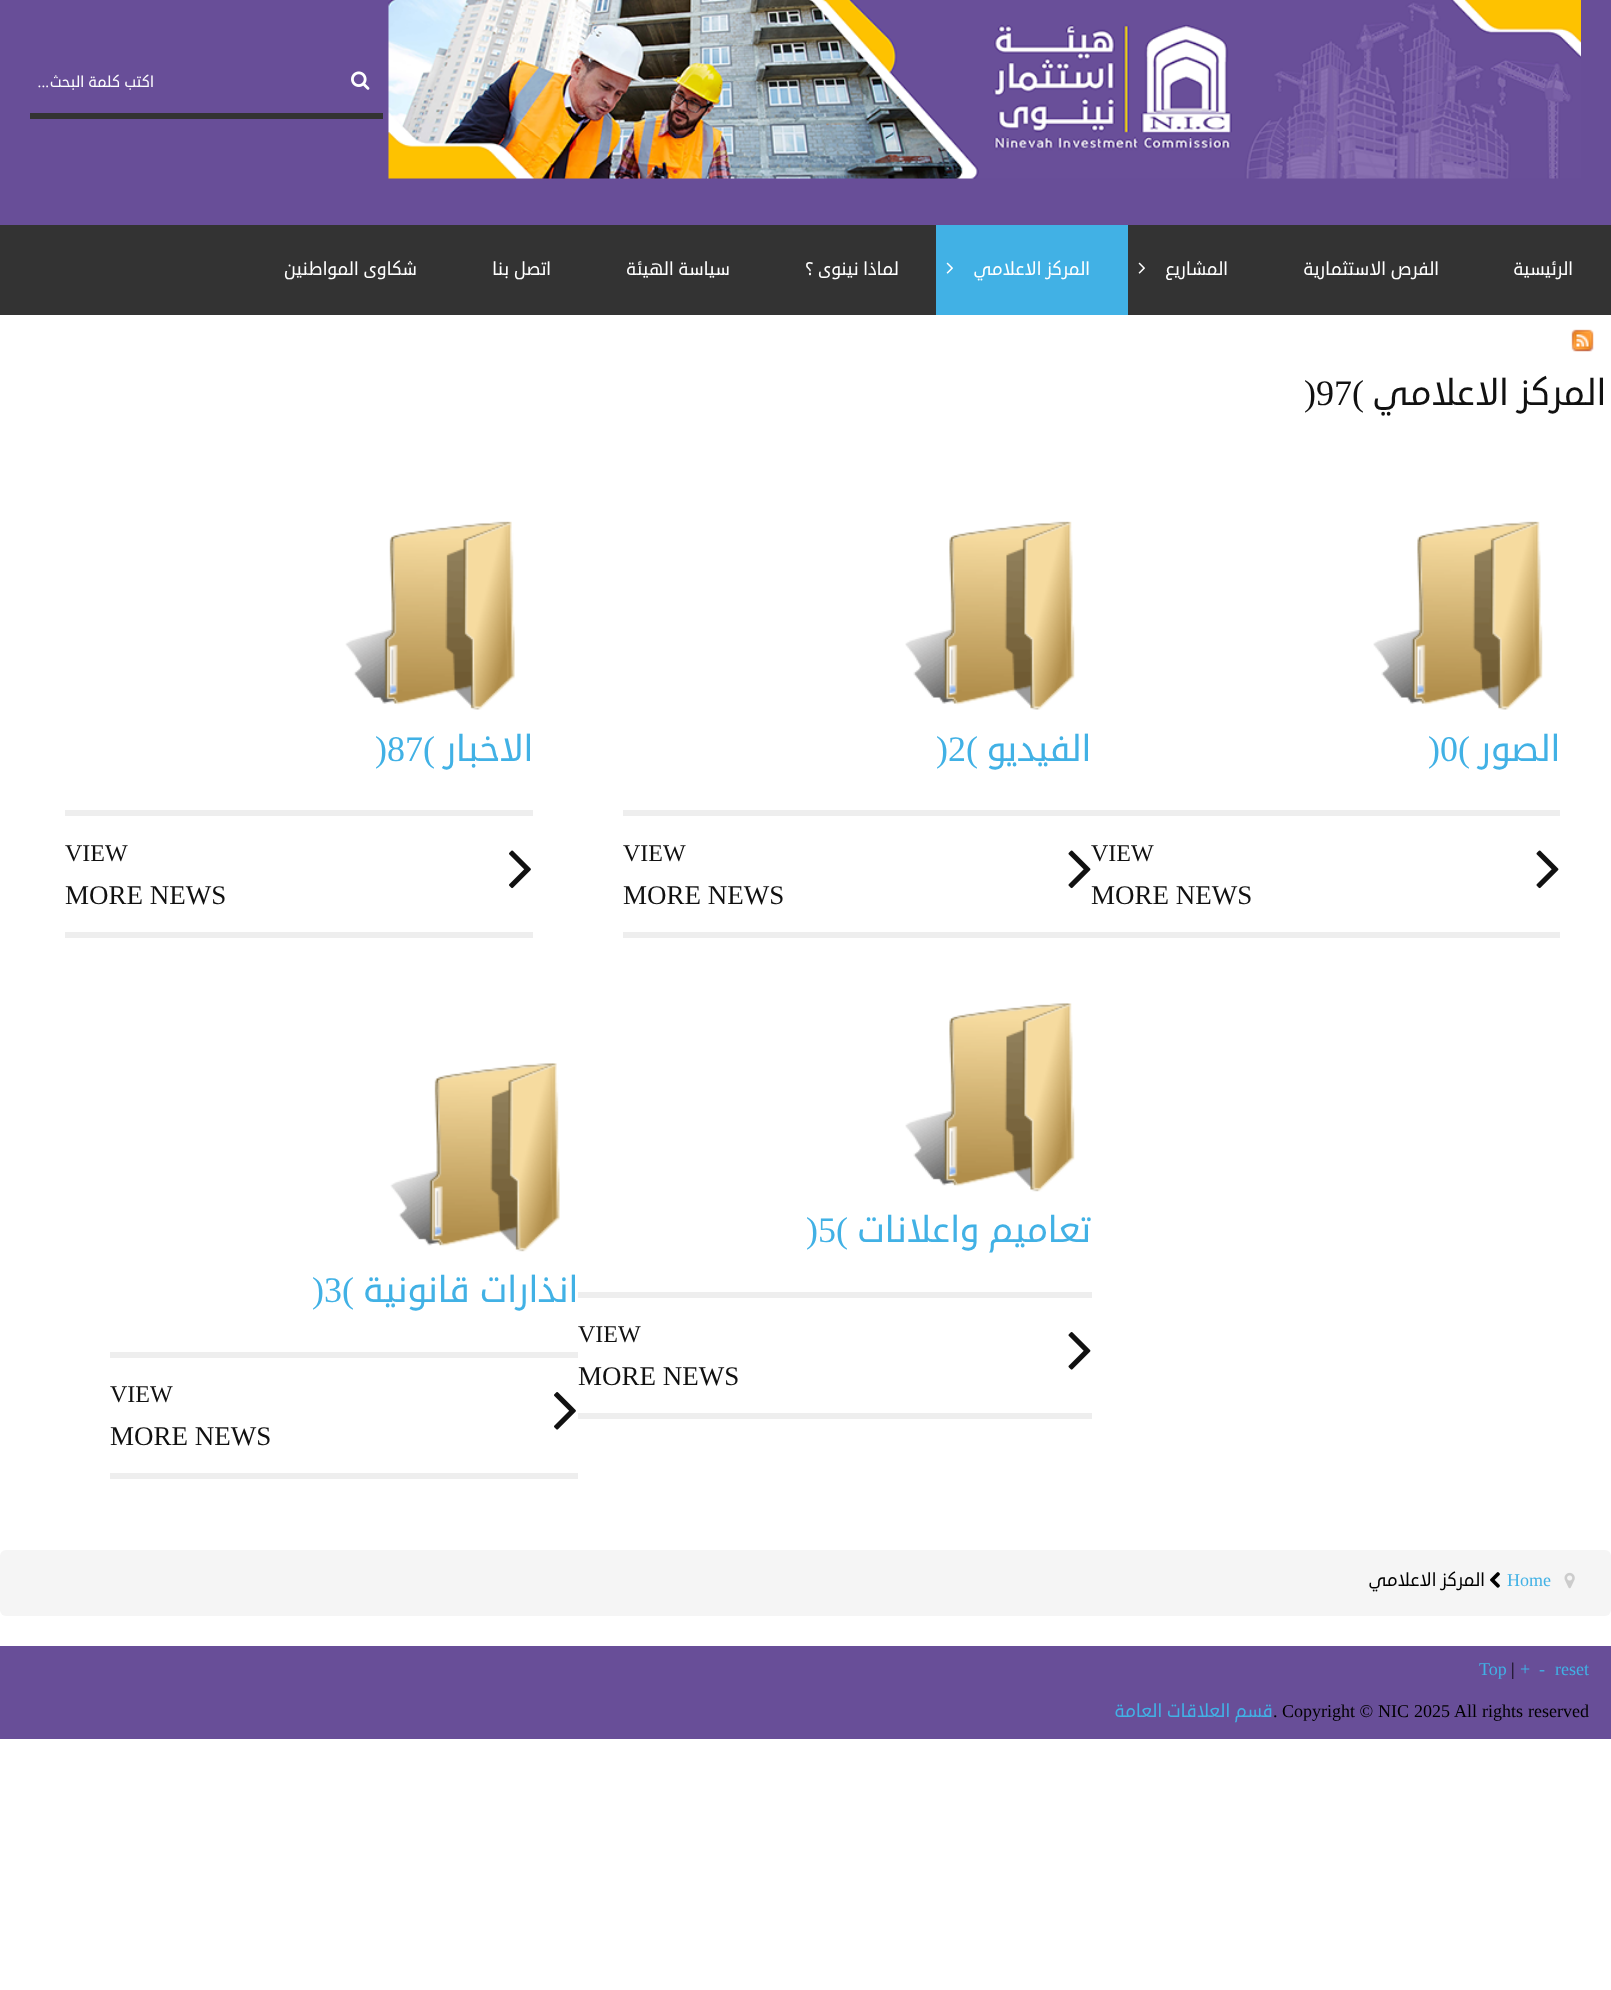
<?xml version="1.0" encoding="UTF-8"?>
<svg xmlns="http://www.w3.org/2000/svg" width="1611" height="1990">
    <rect width="100%" height="100%" fill="#FFFFFF"/>
    <rect x="0" y="0" width="1611" height="225" fill="#684E98"/>
    <image x="388" y="0" width="1193" height="179" href="img_01.png"/>
    <image x="351" y="71" width="19" height="19" href="img_02.png"/>
    <rect x="30" y="113" width="353" height="6" fill="#333333"/>
    <text x="154" y="87" font-family="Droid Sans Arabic" font-size="15.25" direction="rtl" fill="#FFFFFF">اكتب كلمة البحث</text>
    <text x="49" y="87" font-family="Liberation Serif" font-size="15.25" direction="rtl" fill="#FFFFFF">...</text>
    <rect x="0" y="225" width="1611" height="90" fill="#333333"/>
    <text x="1573" y="275" font-family="Droid Sans Arabic" font-size="18" direction="rtl" fill="#FFFFFF">الرئيسية</text>
    <text x="1439" y="275" font-family="Droid Sans Arabic" font-size="18" direction="rtl" fill="#FFFFFF">الفرص الاستثمارية</text>
    <text x="1228" y="275" font-family="Droid Sans Arabic" font-size="18" direction="rtl" fill="#FFFFFF">المشاريع</text>
    <image x="1138" y="262" width="7" height="12" href="img_03.png"/>
    <rect x="936" y="225" width="192" height="90" fill="#41B1E5"/>
    <text x="1090" y="275" font-family="Droid Sans Arabic" font-size="18" direction="rtl" fill="#FFFFFF">المركز الاعلامي</text>
    <image x="946" y="262" width="7" height="12" href="img_04.png"/>
    <text x="899" y="275" font-family="Droid Sans Arabic" font-size="18" direction="rtl" fill="#FFFFFF">لماذا نينوى ؟</text>
    <text x="730" y="275" font-family="Droid Sans Arabic" font-size="18" direction="rtl" fill="#FFFFFF">سياسة الهيئة</text>
    <text x="551" y="275" font-family="Droid Sans Arabic" font-size="18" direction="rtl" fill="#FFFFFF">اتصل بنا</text>
    <text x="417" y="275" font-family="Droid Sans Arabic" font-size="18" direction="rtl" fill="#FFFFFF">شكاوى المواطنين</text>
    <image x="1571" y="329" width="23" height="23" href="img_05.png"/>
    <text x="1606" y="405" font-family="Droid Sans Arabic" font-size="36" direction="rtl" fill="#111111">المركز الاعلامي</text>
    <text x="1304" y="405" font-family="Liberation Serif" font-size="36" fill="#111111">)97(</text>
    <image x="1373" y="521" width="170" height="189" href="img_06.png"/>
    <text x="1560" y="761" font-family="Droid Sans Arabic" font-size="36" direction="rtl" fill="#41B1E5">الصور</text>
    <text x="1428" y="761" font-family="Liberation Serif" font-size="36" fill="#41B1E5">)0(</text>
    <image x="1536" y="850" width="23" height="39" href="img_07.png"/>
    <text x="1091" y="861" font-family="Liberation Serif" font-size="24" fill="#111111">VIEW</text>
    <text x="1091" y="904" font-family="Liberation Serif" font-size="27" fill="#111111">MORE NEWS</text>
    <image x="905" y="521" width="170" height="189" href="img_06.png"/>
    <text x="1091" y="761" font-family="Droid Sans Arabic" font-size="36" direction="rtl" fill="#41B1E5">الفيديو</text>
    <text x="936" y="761" font-family="Liberation Serif" font-size="36" fill="#41B1E5">)2(</text>
    <rect x="623" y="810" width="937" height="6" fill="#EEEEEE"/>
    <rect x="623" y="932" width="937" height="6" fill="#EEEEEE"/>
    <image x="1068" y="850" width="23" height="39" href="img_07.png"/>
    <text x="623" y="861" font-family="Liberation Serif" font-size="24" fill="#111111">VIEW</text>
    <text x="623" y="904" font-family="Liberation Serif" font-size="27" fill="#111111">MORE NEWS</text>
    <image x="345" y="521" width="170" height="189" href="img_08.png"/>
    <text x="533" y="761" font-family="Droid Sans Arabic" font-size="36" direction="rtl" fill="#41B1E5">الاخبار</text>
    <text x="375" y="761" font-family="Liberation Serif" font-size="36" fill="#41B1E5">)87(</text>
    <rect x="65" y="810" width="468" height="6" fill="#EEEEEE"/>
    <rect x="65" y="932" width="468" height="6" fill="#EEEEEE"/>
    <image x="509" y="850" width="22" height="39" href="img_09.png"/>
    <text x="65" y="861" font-family="Liberation Serif" font-size="24" fill="#111111">VIEW</text>
    <text x="65" y="904" font-family="Liberation Serif" font-size="27" fill="#111111">MORE NEWS</text>
    <image x="905" y="1003" width="170" height="189" href="img_10.png"/>
    <text x="1091" y="1242" font-family="Droid Sans Arabic" font-size="36" direction="rtl" fill="#41B1E5">تعاميم واعلانات</text>
    <text x="806" y="1242" font-family="Liberation Serif" font-size="36" fill="#41B1E5">)5(</text>
    <rect x="578" y="1292" width="514" height="6" fill="#EEEEEE"/>
    <rect x="578" y="1413" width="514" height="6" fill="#EEEEEE"/>
    <image x="1068" y="1332" width="23" height="38" href="img_11.png"/>
    <text x="578" y="1342" font-family="Liberation Serif" font-size="24" fill="#111111">VIEW</text>
    <text x="578" y="1385" font-family="Liberation Serif" font-size="27" fill="#111111">MORE NEWS</text>
    <image x="390" y="1063" width="170" height="189" href="img_12.png"/>
    <text x="578" y="1302" font-family="Droid Sans Arabic" font-size="36" direction="rtl" fill="#41B1E5">انذارات قانونية</text>
    <text x="312" y="1302" font-family="Liberation Serif" font-size="36" fill="#41B1E5">)3(</text>
    <rect x="110" y="1352" width="468" height="6" fill="#EEEEEE"/>
    <rect x="110" y="1473" width="468" height="6" fill="#EEEEEE"/>
    <image x="554" y="1392" width="22" height="38" href="img_13.png"/>
    <text x="110" y="1402" font-family="Liberation Serif" font-size="24" fill="#111111">VIEW</text>
    <text x="110" y="1445" font-family="Liberation Serif" font-size="27" fill="#111111">MORE NEWS</text>
    <rect x="0" y="1550" width="1611" height="66" rx="6" fill="#F5F5F5"/>
    <image x="1564" y="1572" width="11" height="17" href="img_14.png"/>
    <text x="1507" y="1586" font-family="Liberation Serif" font-size="18" fill="#41B1E5">Home</text>
    <image x="1490" y="1572" width="10" height="16" href="img_15.png"/>
    <text x="1485" y="1586" font-family="Droid Sans Arabic" font-size="18" direction="rtl" fill="#000000">المركز الاعلامي</text>
    <rect x="0" y="1646" width="1611" height="93" fill="#684E98"/>
    <text x="1555" y="1675" font-family="Liberation Serif" font-size="18" fill="#41B1E5">reset</text>
    <text x="1539" y="1675" font-family="Liberation Serif" font-size="18" fill="#41B1E5">-</text>
    <text x="1520" y="1675" font-family="Liberation Serif" font-size="18" fill="#41B1E5">+</text>
    <text x="1511" y="1675" font-family="Liberation Serif" font-size="18" fill="#000000">|</text>
    <text x="1479" y="1675" font-family="Liberation Serif" font-size="18" fill="#41B1E5">Top</text>
    <text x="1414" y="1717" word-spacing="0.5" font-family="Liberation Serif" font-size="18" fill="#000000">2025 All rights reserved</text>
    <text x="1378" y="1717" font-family="Liberation Serif" font-size="18" fill="#000000">NIC</text>
    <text x="1282" y="1717" font-family="Liberation Serif" font-size="18" fill="#000000">Copyright ©</text>
    <text x="1273" y="1717" font-family="Liberation Serif" font-size="18" fill="#000000">.</text>
    <text x="1273" y="1717" font-family="Droid Sans Arabic" font-size="18" direction="rtl" fill="#41B1E5">قسم العلاقات العامة</text>
</svg>
